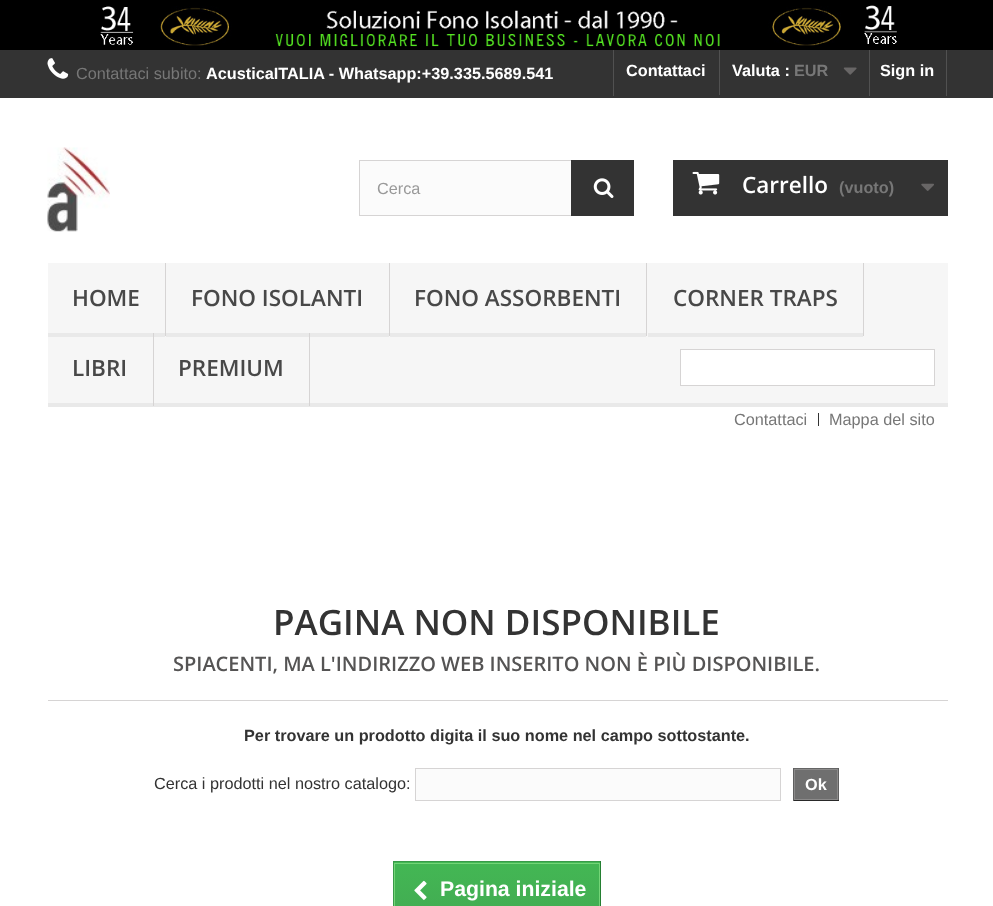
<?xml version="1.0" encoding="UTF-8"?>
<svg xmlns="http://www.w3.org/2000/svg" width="993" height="906">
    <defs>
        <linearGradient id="g1" gradientUnits="userSpaceOnUse" x1="497" y1="863" x2="497" y2="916"><stop offset="0" stop-color="#43B754"/><stop offset="1" stop-color="#42AC52"/></linearGradient>
    </defs>
    <rect width="100%" height="100%" fill="#FFFFFF"/>
    <rect x="0" y="0" width="993" height="50" fill="#000000"/>
    <image x="100" y="5" width="797" height="42" href="img_01.png"/>
    <rect x="0" y="50" width="993" height="48" fill="#333333"/>
    <image x="47" y="58" width="22" height="21" href="img_02.png"/>
    <text x="76" y="79" font-family="Liberation Sans" font-size="16.25" fill="#777777">Contattaci subito:</text>
    <text x="206" y="79" font-family="Liberation Sans" font-size="16.25" font-weight="700" fill="#FFFFFF">AcusticaITALIA - Whatsapp:+39.335.5689.541</text>
    <rect x="613" y="50" width="1" height="46" fill="#515151"/>
    <text x="626" y="76" font-family="Liberation Sans" font-size="16.25" font-weight="700" fill="#FFFFFF">Contattaci</text>
    <rect x="719" y="50" width="1" height="45" fill="#515151"/>
    <text x="732" y="76" font-family="Liberation Sans" font-size="16.25" font-weight="700" fill="#FFFFFF">Valuta :</text>
    <text x="794" y="76" font-family="Liberation Sans" font-size="16.25" font-weight="700" fill="#777777">EUR</text>
    <image x="843" y="67" width="14" height="8" href="img_03.png"/>
    <rect x="946" y="50" width="1" height="46" fill="#515151"/>
    <rect x="869" y="50" width="1" height="46" fill="#515151"/>
    <text x="880" y="76" font-family="Liberation Sans" font-size="16.25" font-weight="700" fill="#FFFFFF">Sign in</text>
    <image x="47" y="147" width="63" height="85" href="img_04.png"/>
    <rect x="360" y="161" width="211" height="54" fill="#FBFBFB"/>
    <rect x="359.5" y="160.5" width="274" height="55" fill="none" stroke="#D6D4D4"/>
    <text x="377" y="194" font-family="Liberation Sans" font-size="16.25" fill="#999999">Cerca</text>
    <rect x="571" y="160" width="63" height="56" fill="#333333"/>
    <image x="593" y="178" width="21" height="20" href="img_05.png"/>
    <rect x="673" y="160" width="275" height="56" fill="#333333"/>
    <image x="692" y="171" width="28" height="24" href="img_06.png"/>
    <text x="742" y="193" font-family="Open Sans" font-size="22.5" font-weight="600" fill="#FFFFFF">Carrello</text>
    <text x="839" y="193" font-family="Liberation Sans" font-size="16.25" font-weight="700" fill="#777777">(vuoto)</text>
    <image x="921" y="183" width="13" height="8" href="img_07.png"/>
    <rect x="48" y="263" width="900" height="140" fill="#F6F6F6"/>
    <rect x="48" y="403" width="900" height="4" fill="#E9E9E9"/>
    <rect x="165" y="263" width="1" height="73" fill="#D6D4D4"/>
    <rect x="48" y="333" width="117" height="4" fill="#E9E9E9"/>
    <text x="72" y="306" font-family="Open Sans" font-size="22.5" font-weight="600" fill="#484848">HOME</text>
    <rect x="389" y="263" width="1" height="73" fill="#D6D4D4"/>
    <rect x="166" y="333" width="223" height="4" fill="#E9E9E9"/>
    <text x="191" y="306" font-family="Open Sans" font-size="22.5" font-weight="600" fill="#484848">FONO ISOLANTI</text>
    <rect x="646" y="263" width="1" height="73" fill="#D6D4D4"/>
    <rect x="390" y="333" width="256" height="4" fill="#E9E9E9"/>
    <text x="414" y="306" font-family="Open Sans" font-size="22.5" font-weight="600" fill="#484848">FONO ASSORBENTI</text>
    <rect x="863" y="263" width="1" height="73" fill="#D6D4D4"/>
    <rect x="648" y="333" width="215" height="4" fill="#E9E9E9"/>
    <text x="673" y="306" font-family="Open Sans" font-size="22.5" font-weight="600" fill="#484848">CORNER TRAPS</text>
    <rect x="153" y="333" width="1" height="73" fill="#D6D4D4"/>
    <text x="72" y="376" font-family="Open Sans" font-size="22.5" font-weight="600" fill="#484848">LIBRI</text>
    <rect x="309" y="333" width="1" height="73" fill="#D6D4D4"/>
    <text x="178" y="376" font-family="Open Sans" font-size="22.5" font-weight="600" fill="#484848">PREMIUM</text>
    <rect x="680.5" y="349.5" width="254" height="36" fill="#FFFFFF" stroke="#D6D4D4"/>
    <text x="734" y="425" font-family="Liberation Sans" font-size="16.25" fill="#777777">Contattaci</text>
    <rect x="818" y="413" width="1" height="13" fill="#333333"/>
    <text x="829" y="425" font-family="Liberation Sans" font-size="16.25" fill="#777777">Mappa del sito</text>
    <text x="273" y="635" font-family="Open Sans" font-size="35" font-weight="600" fill="#333333">PAGINA NON DISPONIBILE</text>
    <rect x="48" y="700" width="900" height="1" fill="#D6D4D4"/>
    <text x="173" y="671" font-family="Open Sans" font-size="20" font-weight="600" fill="#555454">SPIACENTI, MA L'INDIRIZZO WEB INSERITO NON È PIÙ DISPONIBILE.</text>
    <text x="244" y="741" font-family="Liberation Sans" font-size="16.25" font-weight="700" fill="#333333">Per trovare un prodotto digita il suo nome nel campo sottostante.</text>
    <text x="154" y="789" font-family="Liberation Sans" font-size="16.25" fill="#333333">Cerca i prodotti nel nostro catalogo:</text>
    <rect x="415.5" y="768.5" width="365" height="32" fill="#FBFBFB" stroke="#D6D4D4"/>
    <rect x="793" y="768" width="46" height="1" fill="#666666"/>
    <rect x="838" y="768" width="1" height="33" fill="#5F5F5F"/>
    <rect x="793" y="800" width="46" height="1" fill="#292929"/>
    <rect x="793" y="768" width="1" height="33" fill="#5F5F5F"/>
    <rect x="794.5" y="769.5" width="43" height="30" fill="#6F6F6F" stroke="#8B8A8A"/>
    <text x="805" y="790" font-family="Liberation Sans" font-size="16.25" font-weight="700" fill="#FFFFFF">Ok</text>
    <rect x="394" y="862" width="206" height="1" fill="#43B754"/>
    <rect x="395" y="864" width="204" height="42" fill="url(#g1)"/>
    <rect x="393" y="861" width="208" height="1" fill="#399A49"/>
    <rect x="600" y="861" width="1" height="45" fill="#247F32"/>
    <rect x="393" y="861" width="1" height="45" fill="#399A49"/>
    <rect x="394.5" y="863.5" width="205" height="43" fill="none" stroke="#74D578"/>
    <image x="414" y="880" width="13" height="20" href="img_08.png"/>
    <text x="440" y="896" font-family="Liberation Sans" font-size="21.25" font-weight="700" fill="#FFFFFF">Pagina iniziale</text>
</svg>
